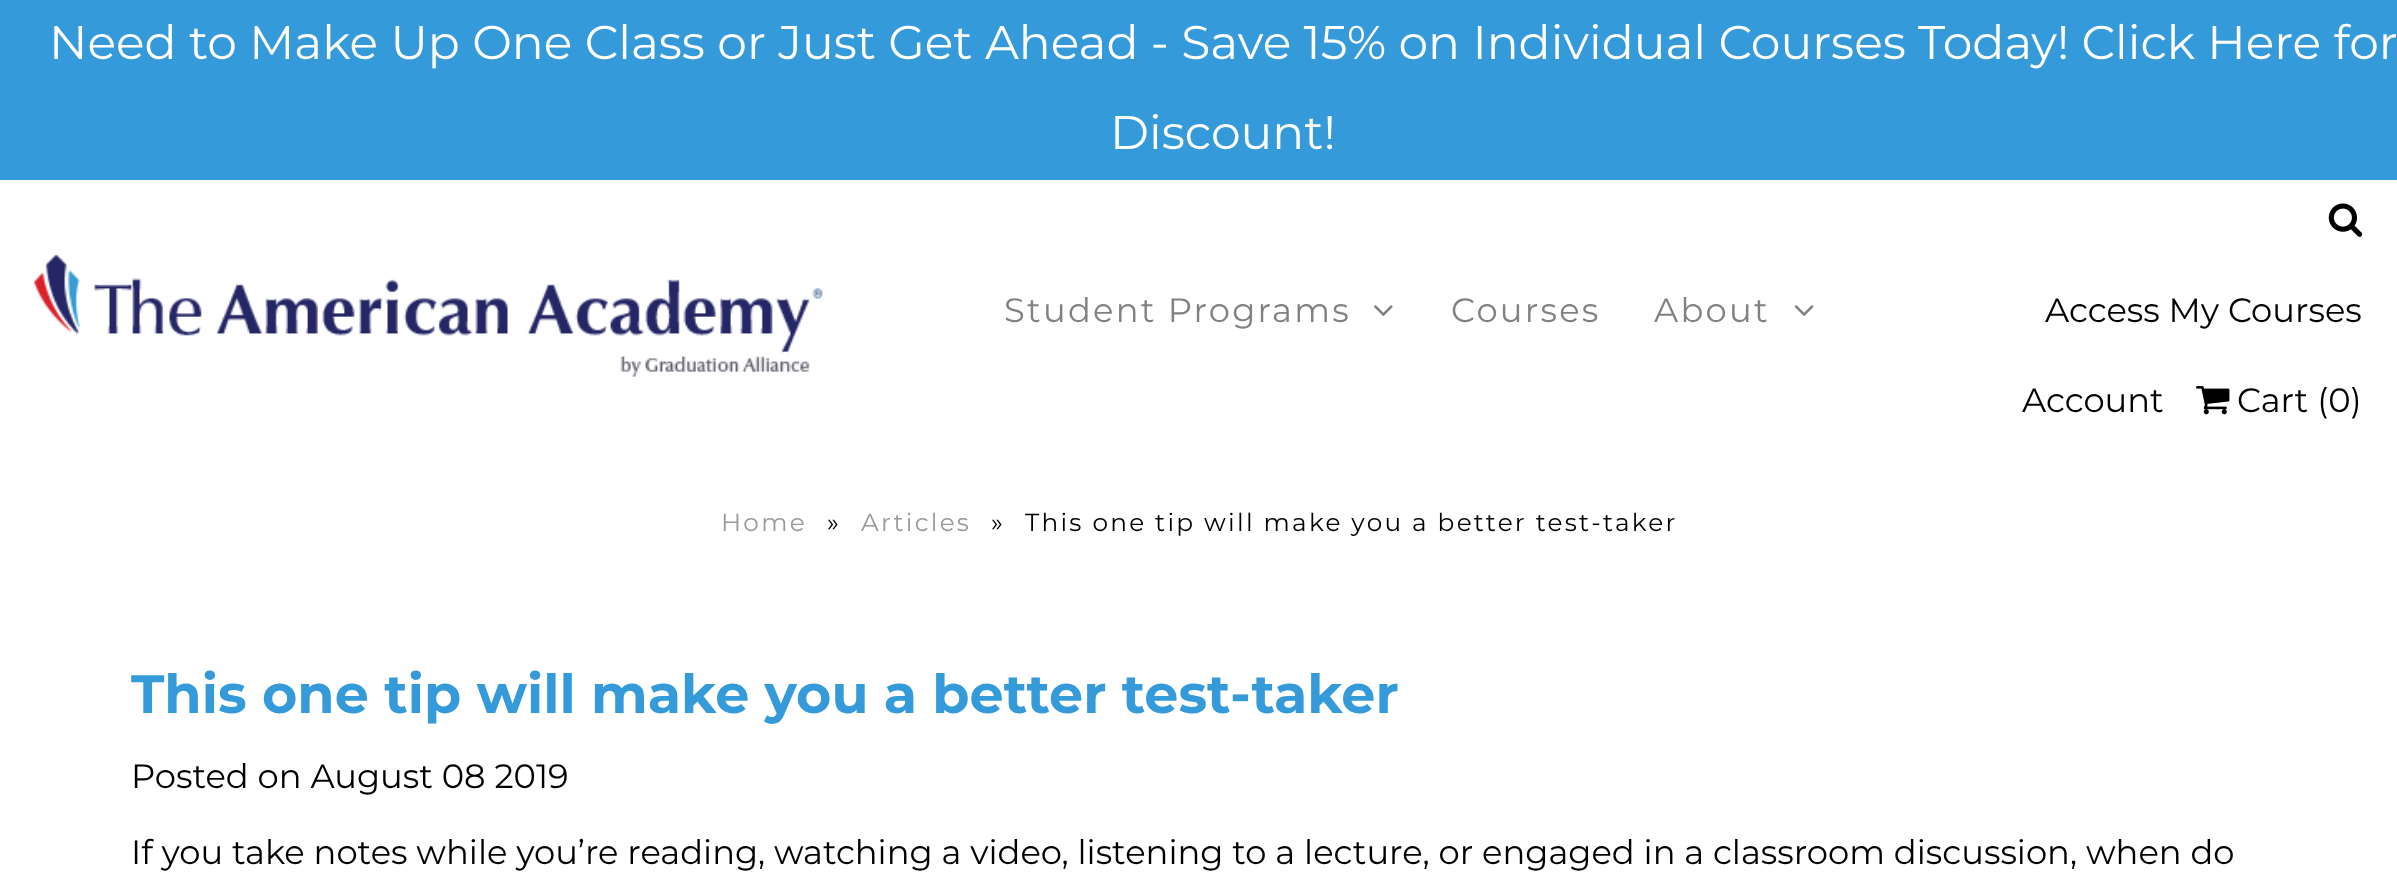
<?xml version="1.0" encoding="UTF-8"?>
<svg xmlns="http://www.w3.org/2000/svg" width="2397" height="894">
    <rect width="100%" height="100%" fill="#FFFFFF"/>
    <rect x="0" y="0" width="2397" height="180" fill="#359AD9"/>
    <text x="49" y="59" font-family="Montserrat" font-size="47.25" fill="#FFFFFF">Need to Make Up One Class or Just Get Ahead - Save 15% on Individual Courses Today! Click Here for</text>
    <text x="1110" y="149" font-family="Montserrat" font-size="47.25" fill="#FFFFFF">Discount!</text>
    <image x="34" y="254" width="789" height="123" href="img_01.png"/>
    <text x="1004" y="322" font-family="Montserrat" font-size="33.75" letter-spacing="2.25" fill="#818181">Student Programs</text>
    <image x="1374" y="305" width="19" height="11" href="img_02.png"/>
    <text x="1451" y="322" font-family="Montserrat" font-size="33.75" letter-spacing="2.25" fill="#818181">Courses</text>
    <text x="1654" y="322" font-family="Montserrat" font-size="33.75" letter-spacing="2.25" fill="#818181">About</text>
    <image x="1794" y="305" width="20" height="11" href="img_03.png"/>
    <image x="2328" y="203" width="35" height="34" href="img_04.png"/>
    <text x="2045" y="322" font-family="Montserrat" font-size="33.75" fill="#000000">Access My Courses</text>
    <text x="2022" y="412" font-family="Montserrat" font-size="33.75" fill="#000000">Account</text>
    <image x="2196" y="386" width="34" height="29" href="img_05.png"/>
    <text x="2237" y="412" font-family="Montserrat" font-size="33.75" fill="#000000">Cart (0)</text>
    <text x="721" y="531" font-family="Montserrat" font-size="24.75" letter-spacing="2.25" fill="#999999">Home</text>
    <text x="827" y="531" font-family="Montserrat" font-size="24.75" letter-spacing="2.25" fill="#000000">»</text>
    <text x="861" y="531" font-family="Montserrat" font-size="24.75" letter-spacing="2.25" fill="#999999">Articles</text>
    <text x="991" y="531" font-family="Montserrat" font-size="24.75" letter-spacing="2.25" fill="#000000">»</text>
    <text x="1025" y="531" font-family="Montserrat" font-size="24.75" letter-spacing="2.25" fill="#000000">This one tip will make you a better test-taker</text>
    <text x="131" y="713" font-family="Montserrat" font-size="54" font-weight="700" fill="#359AD9">This one tip will make you a better test-taker</text>
    <text x="131" y="788" font-family="Montserrat" font-size="33.75" fill="#000000">Posted on August 08 2019</text>
    <text x="131" y="864" font-family="Montserrat" font-size="33.75" fill="#000000">If you take notes while you’re reading, watching a video, listening to a lecture, or engaged in a classroom discussion, when do</text>
</svg>
